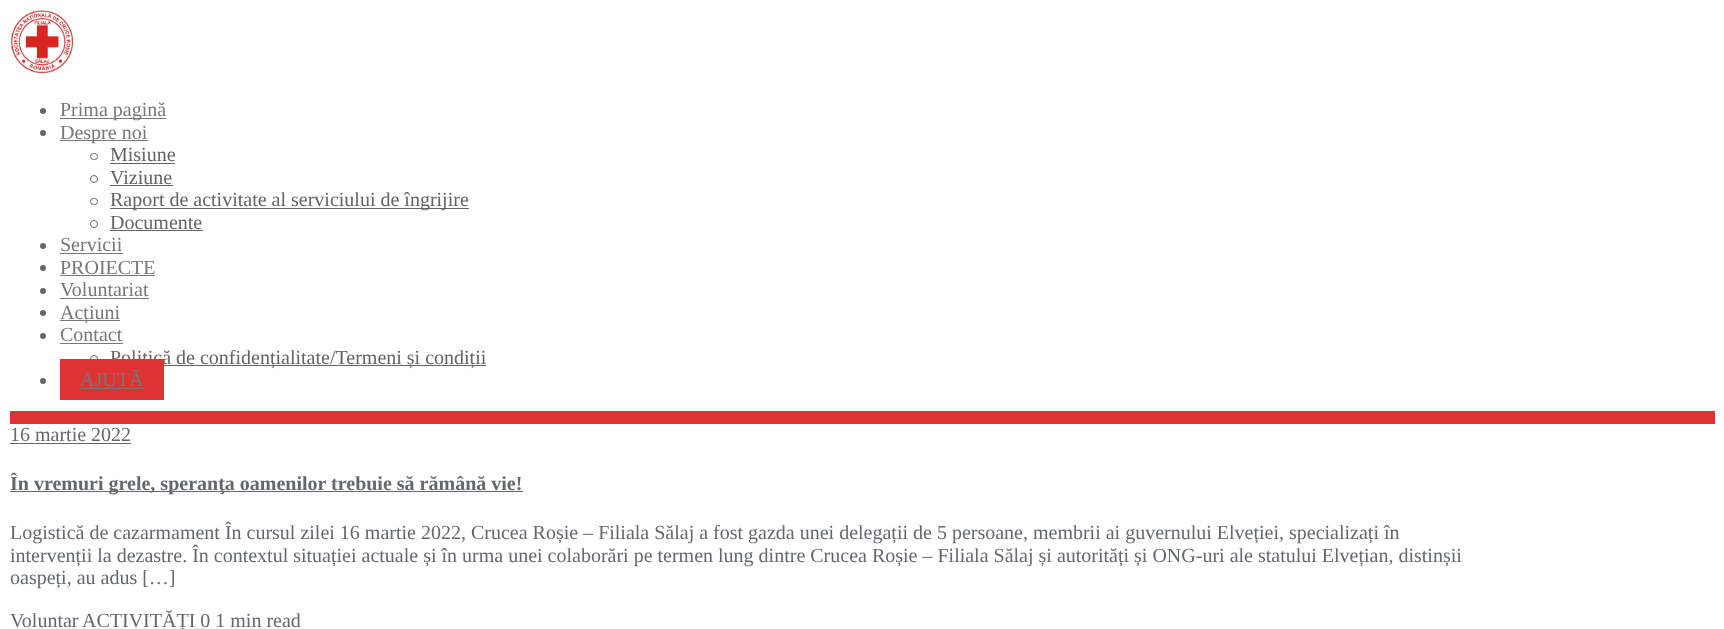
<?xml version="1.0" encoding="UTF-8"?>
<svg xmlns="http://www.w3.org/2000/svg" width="1724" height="629">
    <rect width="100%" height="100%" fill="#FFFFFF"/>
    <rect x="10" y="411" width="1705" height="13" fill="#DD3333"/>
    <image x="10" y="10" width="64" height="64" href="img_01.png"/>
    <circle cx="43" cy="111" r="3" fill="#64686D"/>
    <rect x="60" y="118" width="106" height="1" fill="#777777"/>
    <text x="60" y="116" font-family="Liberation Serif" font-size="20" fill="#777777">Prima pagină</text>
    <circle cx="43" cy="133" r="3" fill="#64686D"/>
    <rect x="60" y="140" width="88" height="1" fill="#777777"/>
    <text x="60" y="139" font-family="Liberation Serif" font-size="20" fill="#777777">Despre noi</text>
    <rect x="90.5" y="153.5" width="7" height="6" rx="3" fill="none" stroke="#64686D"/>
    <text x="110" y="161" font-family="Liberation Serif" font-size="20" fill="#636363">Misiune</text>
    <rect x="110" y="163" width="65" height="1" fill="#636363"/>
    <circle cx="94" cy="179" r="3.5" fill="none" stroke="#64686D"/>
    <text x="110" y="184" font-family="Liberation Serif" font-size="20" fill="#636363">Viziune</text>
    <rect x="110" y="185" width="63" height="1" fill="#636363"/>
    <rect x="90.5" y="198.5" width="7" height="6" rx="3" fill="none" stroke="#64686D"/>
    <rect x="110" y="208" width="359" height="1" fill="#636363"/>
    <text x="110" y="206" font-family="Liberation Serif" font-size="20" fill="#636363">Raport de activitate al serviciului de îngrijire</text>
    <circle cx="94" cy="224" r="3.5" fill="none" stroke="#64686D"/>
    <text x="110" y="229" font-family="Liberation Serif" font-size="20" fill="#636363">Documente</text>
    <rect x="110" y="230" width="93" height="1" fill="#636363"/>
    <circle cx="43" cy="246" r="3" fill="#64686D"/>
    <text x="60" y="251" font-family="Liberation Serif" font-size="20" fill="#777777">Servicii</text>
    <rect x="60" y="253" width="63" height="1" fill="#777777"/>
    <circle cx="43" cy="268" r="3" fill="#64686D"/>
    <text x="60" y="274" font-family="Liberation Serif" font-size="20" fill="#777777">PROIECTE</text>
    <rect x="60" y="275" width="95" height="1" fill="#777777"/>
    <circle cx="43" cy="291" r="3" fill="#64686D"/>
    <text x="60" y="296" font-family="Liberation Serif" font-size="20" fill="#777777">Voluntariat</text>
    <rect x="60" y="298" width="89" height="1" fill="#777777"/>
    <circle cx="43" cy="313" r="3" fill="#64686D"/>
    <rect x="60" y="320" width="60" height="1" fill="#777777"/>
    <text x="60" y="319" font-family="Liberation Serif" font-size="20" fill="#777777">Acțiuni</text>
    <circle cx="43" cy="336" r="3" fill="#64686D"/>
    <text x="60" y="341" font-family="Liberation Serif" font-size="20" fill="#777777">Contact</text>
    <rect x="60" y="343" width="63" height="1" fill="#777777"/>
    <circle cx="94" cy="359" r="3.5" fill="none" stroke="#64686D"/>
    <rect x="164" y="365" width="322" height="1" fill="#636363"/>
    <text x="110" y="364" font-family="Liberation Serif" font-size="20" fill="#636363">Politică de confidențialitate/Termeni și condiții</text>
    <circle cx="43" cy="381" r="3" fill="#64686D"/>
    <rect x="60" y="359" width="104" height="41" fill="#DD3333"/>
    <text x="80" y="386" font-family="Liberation Serif" font-size="20" fill="#777777">AJUTĂ</text>
    <rect x="80" y="388" width="64" height="1" fill="#777777"/>
    <text x="10" y="441" font-family="Liberation Serif" font-size="20" fill="#64686D">16 martie 2022</text>
    <rect x="10" y="443" width="121" height="1" fill="#64686D"/>
    <rect x="10" y="491" width="513" height="1" fill="#64686D"/>
    <text x="10" y="490" font-family="Liberation Serif" font-size="20" font-weight="700" fill="#64686D">În vremuri grele, speranţa oamenilor trebuie să rămână vie!</text>
    <text font-family="Liberation Serif" font-size="20" fill="#64686D">
        <tspan x="10" y="539">Logistică de cazarmament În cursul zilei 16 martie 2022, Crucea Roșie – Filiala Sălaj a fost gazda unei delegații de 5 persoane, membrii ai guvernului Elveției, specializați în</tspan>
        <tspan x="10" y="562">intervenții la dezastre. În contextul situației actuale și în urma unei colaborări pe termen lung dintre Crucea Roșie – Filiala Sălaj și autorități și ONG-uri ale statului Elvețian, distinșii</tspan>
        <tspan x="10" y="584">oaspeți, au adus […]</tspan>
    </text>
    <text x="10" y="627" font-family="Liberation Serif" font-size="20" fill="#64686D">Voluntar</text>
    <text x="82" y="627" font-family="Liberation Serif" font-size="20" fill="#64686D">ACTIVITĂȚI 0 1 min read</text>
</svg>
